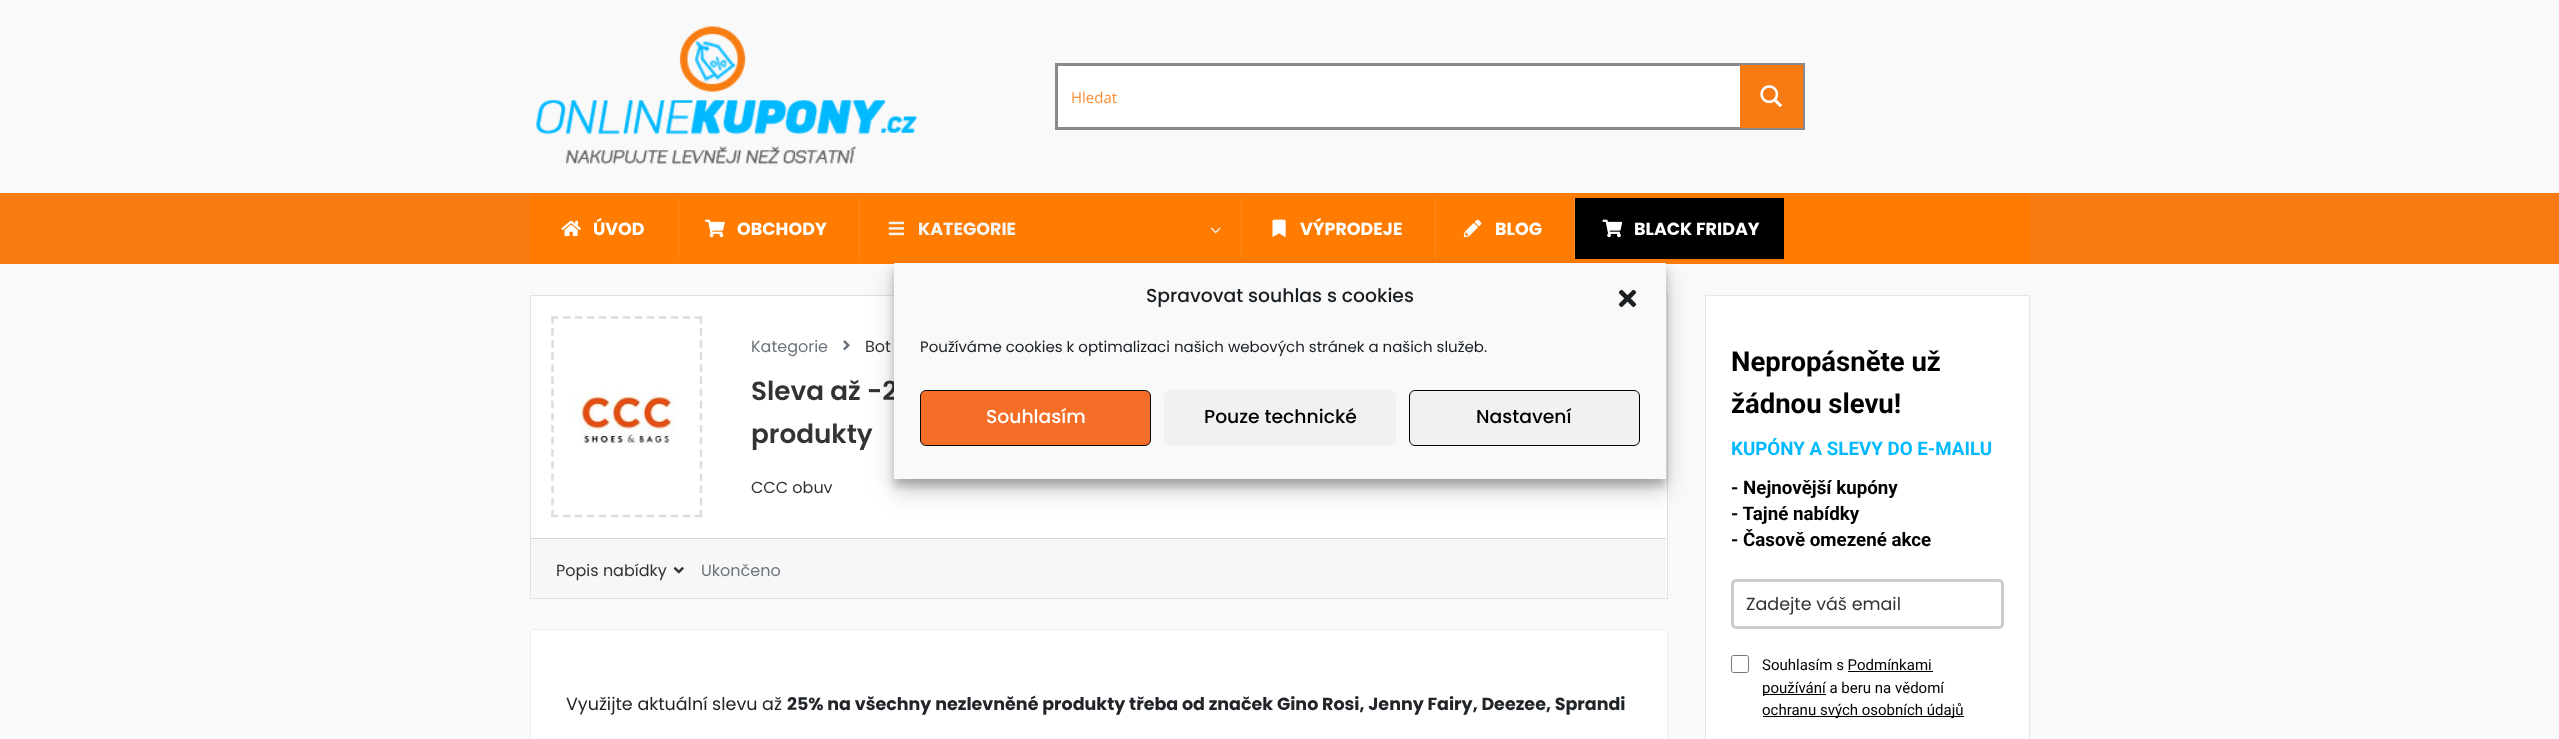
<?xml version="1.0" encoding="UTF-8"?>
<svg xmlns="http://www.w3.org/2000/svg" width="2559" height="739">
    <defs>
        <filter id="blur1" x="-50%" y="-200%" width="200%" height="500%"><feGaussianBlur stdDeviation="4"/></filter>
        <filter id="blur2" x="-50%" y="-200%" width="200%" height="500%"><feGaussianBlur stdDeviation="12.5"/></filter>
    </defs>
    <rect width="100%" height="100%" fill="#F9F9F9"/>
    <image x="536" y="26" width="381" height="139" href="img_01.png"/>
    <rect x="1058" y="66" width="682" height="61" fill="#FFFFFF"/>
    <rect x="1056.5" y="64.5" width="747" height="64" fill="none" stroke="#898989" stroke-width="3"/>
    <text x="1071" y="103" font-family="Open Sans" font-size="15" fill="#F98E36">Hledat</text>
    <path d="M 1740 65 H 1802 C 1802.5 65 1803 65.5 1803 66 V 127 C 1803 127.5 1802.5 128 1802 128 H 1740 Z" fill="#F87A13"/>
    <image x="1760" y="85" width="23" height="23" href="img_02.png"/>
    <rect x="0" y="193" width="2559" height="71" fill="#F87A13"/>
    <rect x="530" y="193" width="1500" height="71" fill="#FF7C00"/>
    <image x="561" y="220" width="20" height="17" href="img_03.png"/>
    <text x="593" y="235" font-family="Poppins" font-size="17.5" font-weight="700" fill="#FFFFFF">ÚVOD</text>
    <rect x="678" y="198" width="1" height="61" fill="#FF8C21"/>
    <image x="705" y="219" width="20" height="19" href="img_04.png"/>
    <text x="737" y="235" font-family="Poppins" font-size="17.5" font-weight="700" fill="#FFFFFF">OBCHODY</text>
    <rect x="859" y="198" width="1" height="61" fill="#FF8C21"/>
    <image x="888" y="221" width="17" height="15" href="img_05.png"/>
    <text x="918" y="235" font-family="Poppins" font-size="17.5" font-weight="700" fill="#F4F4F4">KATEGORIE</text>
    <image x="1210" y="227" width="11" height="7" href="img_06.png"/>
    <rect x="1241" y="198" width="1" height="61" fill="#FF8C21"/>
    <image x="1272" y="219" width="14" height="19" href="img_07.png"/>
    <text x="1300" y="235" font-family="Poppins" font-size="17.5" font-weight="700" fill="#FFFFFF">VÝPRODEJE</text>
    <rect x="1435" y="198" width="1" height="61" fill="#FF8C21"/>
    <image x="1463" y="219" width="19" height="19" href="img_08.png"/>
    <text x="1495" y="235" font-family="Poppins" font-size="17.5" font-weight="700" fill="#FFFFFF">BLOG</text>
    <rect x="1575" y="198" width="209" height="61" fill="#000000"/>
    <rect x="1574" y="198" width="1" height="61" fill="#FF8C21"/>
    <image x="1602" y="219" width="21" height="19" href="img_09.png"/>
    <text x="1634" y="235" font-family="Poppins" font-size="17.5" font-weight="700" fill="#FFFFFF">BLACK FRIDAY</text>
    <rect x="530.5" y="295.5" width="1137" height="303" fill="#FFFFFF" stroke="#DEE2E6"/>
    <path d="M 551 317.5 H 702.5" fill="none" stroke="#DDDDDD" stroke-width="2.5" stroke-dasharray="7.5 4.47"/>
    <path d="M 701 316 V 517.5" fill="none" stroke="#DDDDDD" stroke-width="2.5" stroke-dasharray="7.5 4.61"/>
    <path d="M 551 516 H 702.5" fill="none" stroke="#DDDDDD" stroke-width="2.5" stroke-dasharray="7.5 4.47"/>
    <path d="M 552.5 316 V 517.5" fill="none" stroke="#DDDDDD" stroke-width="2.5" stroke-dasharray="7.5 4.61"/>
    <image x="571" y="391" width="106" height="54" href="img_10.png"/>
    <text x="751" y="352" font-family="Poppins" font-size="16" fill="#6C757D">Kategorie</text>
    <image x="843" y="340" width="7" height="11" href="img_11.png"/>
    <text x="865" y="352" font-family="Poppins" font-size="16" fill="#333333">Bot</text>
    <text font-family="Poppins" font-size="26.25" font-weight="600" fill="#333333">
        <tspan x="751" y="400">Sleva až -2</tspan>
        <tspan x="751" y="443">produkty</tspan>
    </text>
    <text x="751" y="493" font-family="Poppins" font-size="16" fill="#333333">CCC obuv</text>
    <path d="M 531 538 H 1666 V 594 C 1666 596 1664 598 1662 598 H 535 C 533 598 531 596 531 594 Z" fill="#F7F7F7"/>
    <rect x="531" y="538" width="1135" height="1" fill="#D8D8D8"/>
    <text x="556" y="576" font-family="Poppins" font-size="16" fill="#333333">Popis nabídky</text>
    <image x="673" y="567" width="11" height="7" href="img_12.png"/>
    <text x="701" y="576" font-family="Poppins" font-size="16" fill="#6C757D">Ukončeno</text>
    <rect x="530.5" y="629.5" width="1137" height="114" rx="3.5" fill="#FFFFFF" stroke="#EDEDED"/>
    <text x="566" y="710" font-family="Poppins" font-size="17.5" fill="#212529">Využijte aktuální slevu až</text>
    <text x="787" y="710" font-family="Poppins" font-size="17.5" font-weight="700" fill="#212529">25% na všechny nezlevněné produkty třeba od značek Gino Rosi, Jenny Fairy, Deezee, Sprandi</text>
    <rect x="1705.5" y="295.5" width="324" height="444" fill="#FFFFFF" stroke="#E6E6E6"/>
    <text font-family="Roboto" font-size="27.5" font-weight="700" fill="#000000">
        <tspan x="1731" y="371">Nepropásněte už</tspan>
        <tspan x="1731" y="413">žádnou slevu!</tspan>
    </text>
    <text x="1731" y="455" font-family="Roboto" font-size="18.75" font-weight="700" fill="#00B9FF">KUPÓNY A SLEVY DO E-MAILU</text>
    <text font-family="Roboto" font-size="18.75" font-weight="700" fill="#000000">
        <tspan x="1731" y="494">- Nejnovější kupóny</tspan>
        <tspan x="1731" y="520">- Tajné nabídky</tspan>
        <tspan x="1731" y="546">- Časově omezené akce</tspan>
    </text>
    <rect x="1732.5" y="580.5" width="270" height="47" rx="3.5" fill="none" stroke="#CCCCCC" stroke-width="3"/>
    <text x="1746" y="610" font-family="Poppins" font-size="17.5" fill="#333333">Zadejte váš email</text>
    <rect x="1731.5" y="655.5" width="17" height="17" rx="2" fill="none" stroke="#767676"/>
    <text x="1762" y="670" font-family="Roboto" font-size="15" fill="#000000">Souhlasím s Podmínkami</text>
    <rect x="1763" y="694" width="63" height="1" fill="#000000"/>
    <text x="1762" y="693" font-family="Roboto" font-size="15" fill="#000000">používání a beru na vědomí</text>
    <rect x="1848" y="671" width="85" height="1" fill="#000000"/>
    <rect x="1763" y="716" width="201" height="1" fill="#000000"/>
    <text x="1762" y="715" font-family="Roboto" font-size="15" fill="#000000">ochranu svých osobních údajů</text>
    <rect x="894" y="270" width="772" height="216" fill="#000000" fill-opacity="0.23" filter="url(#blur1)"/>
    <rect x="894" y="275" width="772" height="216" fill="#000000" fill-opacity="0.19" filter="url(#blur2)"/>
    <rect x="894" y="263" width="772" height="216" fill="#F9F9F9"/>
    <text x="1146" y="302" font-family="Poppins" font-size="18.75" font-weight="500" fill="#191E23">Spravovat souhlas s cookies</text>
    <image x="1618" y="289" width="19" height="18" href="img_13.png"/>
    <text x="920" y="352" font-family="Poppins" font-size="15" fill="#191E23">Používáme cookies k optimalizaci našich webových stránek a našich služeb.</text>
    <rect x="920.5" y="390.5" width="230" height="55" rx="5.5" fill="#F56E28" stroke="#0A0A0A"/>
    <text x="986" y="423" font-family="Poppins" font-size="18.75" font-weight="500" fill="#FFFFFF">Souhlasím</text>
    <rect x="1164" y="390" width="232" height="56" rx="6" fill="#F1F1F1"/>
    <text x="1204" y="423" font-family="Poppins" font-size="18.75" font-weight="500" fill="#000000">Pouze technické</text>
    <rect x="1409.5" y="390.5" width="230" height="55" rx="5.5" fill="#F1F1F1" stroke="#000000"/>
    <text x="1476" y="423" font-family="Poppins" font-size="18.75" font-weight="500" fill="#000000">Nastavení</text>
</svg>
